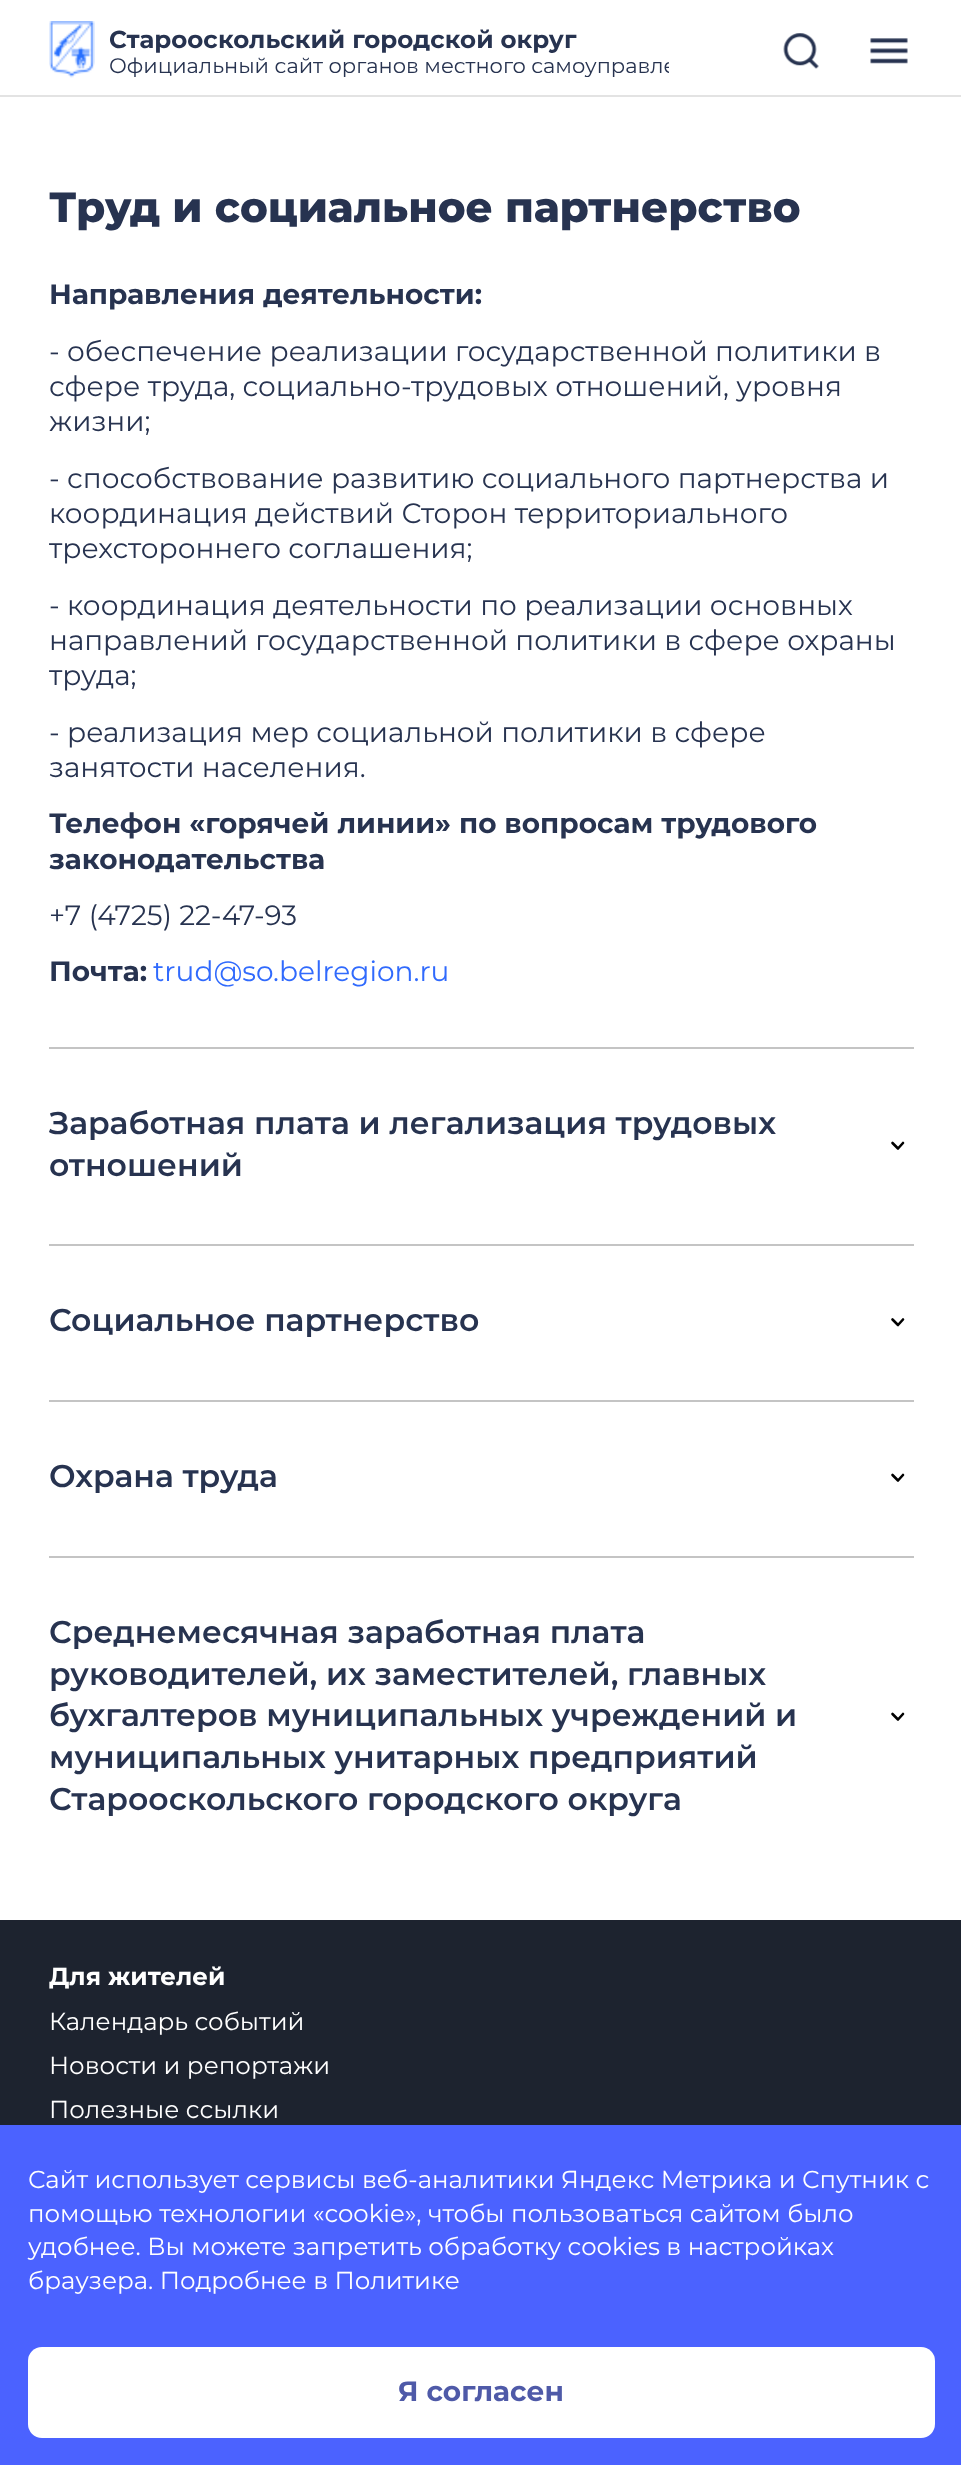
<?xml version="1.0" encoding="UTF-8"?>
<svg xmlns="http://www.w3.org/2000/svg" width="961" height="2465">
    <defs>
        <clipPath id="clip1"><rect x="109" y="56" width="560" height="21"/></clipPath>
    </defs>
    <rect width="100%" height="100%" fill="#FFFFFF"/>
    <rect x="0" y="95" width="961" height="2" fill="#E3E3E3"/>
    <image x="49" y="21" width="46" height="57" href="img_01.png"/>
    <text x="109" y="48" font-family="Montserrat" font-size="24.5" font-weight="700" fill="#273350">Старооскольский городской округ</text>
    <g clip-path="url(#clip1)">
        <text x="109" y="73" font-family="Montserrat" font-size="21" fill="#273350">Официальный сайт органов местного самоуправле</text>
    </g>
    <image x="783" y="33" width="36" height="36" href="img_02.png"/>
    <image x="870" y="38" width="38" height="26" href="img_03.png"/>
    <text x="49" y="222" font-family="Montserrat" font-size="42" font-weight="800" fill="#273350">Труд и социальное партнерство</text>
    <text x="49" y="304" font-family="Montserrat" font-size="28" font-weight="700" fill="#273350">Направления деятельности:</text>
    <text font-family="Montserrat" font-size="28" fill="#273350">
        <tspan x="49" y="361">- обеспечение реализации государственной политики в</tspan>
        <tspan x="49" y="396">сфере труда, социально-трудовых отношений, уровня</tspan>
        <tspan x="49" y="431">жизни;</tspan>
    </text>
    <text font-family="Montserrat" font-size="28" fill="#273350">
        <tspan x="49" y="488">- способствование развитию социального партнерства и</tspan>
        <tspan x="49" y="523">координация действий Сторон территориального</tspan>
        <tspan x="49" y="558">трехстороннего соглашения;</tspan>
    </text>
    <text font-family="Montserrat" font-size="28" fill="#273350">
        <tspan x="49" y="615">- координация деятельности по реализации основных</tspan>
        <tspan x="49" y="650">направлений государственной политики в сфере охраны</tspan>
        <tspan x="49" y="685">труда;</tspan>
    </text>
    <text font-family="Montserrat" font-size="28" fill="#273350">
        <tspan x="49" y="742">- реализация мер социальной политики в сфере</tspan>
        <tspan x="49" y="777">занятости населения.</tspan>
    </text>
    <text font-family="Montserrat" font-size="28" font-weight="700" fill="#273350">
        <tspan x="49" y="833">Телефон «горячей линии» по вопросам трудового</tspan>
        <tspan x="49" y="869">законодательства</tspan>
    </text>
    <text x="49" y="925" font-family="Montserrat" font-size="28" fill="#273350">+7 (4725) 22-47-93</text>
    <text x="49" y="981" font-family="Montserrat" font-size="28" font-weight="700" fill="#273350">Почта:</text>
    <text x="153" y="981" font-family="Montserrat" font-size="28" fill="#306AFD">trud@so.belregion.ru</text>
    <rect x="49" y="1047" width="865" height="2" fill="#C4C4C4"/>
    <text font-family="Montserrat" font-size="31.5" font-weight="600" fill="#273350">
        <tspan x="49" y="1134">Заработная плата и легализация трудовых</tspan>
        <tspan x="49" y="1176">отношений</tspan>
    </text>
    <path d="M 903 1143 L 898 1148.5 L 892.5 1143" fill="none" stroke="#000000" stroke-width="2.6" stroke-linecap="round" stroke-linejoin="round"/>
    <rect x="49" y="1244" width="865" height="2" fill="#C4C4C4"/>
    <text x="49" y="1331" font-family="Montserrat" font-size="31.5" font-weight="600" fill="#273350">Социальное партнерство</text>
    <path d="M 903 1319.5 L 898 1325 L 892.5 1319.5" fill="none" stroke="#000000" stroke-width="2.6" stroke-linecap="round" stroke-linejoin="round"/>
    <rect x="49" y="1400" width="865" height="2" fill="#C4C4C4"/>
    <text x="49" y="1487" font-family="Montserrat" font-size="31.5" font-weight="600" fill="#273350">Охрана труда</text>
    <path d="M 903 1475 L 898 1480.5 L 892.5 1475" fill="none" stroke="#000000" stroke-width="2.6" stroke-linecap="round" stroke-linejoin="round"/>
    <rect x="49" y="1556" width="865" height="2" fill="#C4C4C4"/>
    <text font-family="Montserrat" font-size="31.5" font-weight="600" fill="#273350">
        <tspan x="49" y="1643">Среднемесячная заработная плата</tspan>
        <tspan x="49" y="1685">руководителей, их заместителей, главных</tspan>
        <tspan x="49" y="1726">бухгалтеров муниципальных учреждений и</tspan>
        <tspan x="49" y="1768">муниципальных унитарных предприятий</tspan>
        <tspan x="49" y="1810">Старооскольского городского округа</tspan>
    </text>
    <path d="M 903 1714 L 898 1719.5 L 892.5 1714" fill="none" stroke="#000000" stroke-width="2.6" stroke-linecap="round" stroke-linejoin="round"/>
    <rect x="0" y="1920" width="961" height="205" fill="#1D232F"/>
    <text x="49" y="1985" font-family="Montserrat" font-size="24.5" font-weight="700" fill="#FFFFFF">Для жителей</text>
    <text font-family="Montserrat" font-size="24.5" fill="#FFFFFF">
        <tspan x="49" y="2030">Календарь событий</tspan>
        <tspan x="49" y="2074">Новости и репортажи</tspan>
        <tspan x="49" y="2118">Полезные cсылки</tspan>
    </text>
    <rect x="0" y="2125" width="961" height="340" fill="#4B62FF"/>
    <text font-family="Montserrat" font-size="24.5" fill="#FFFFFF">
        <tspan x="28" y="2188">Сайт использует сервисы веб-аналитики Яндекс Метрика и Спутник с</tspan>
        <tspan x="28" y="2222">помощью технологии «cookie», чтобы пользоваться сайтом было</tspan>
        <tspan x="28" y="2255">удобнее. Вы можете запретить обработку cookies в настройках</tspan>
        <tspan x="28" y="2289">браузера. Подробнее в Политике</tspan>
    </text>
    <rect x="28" y="2347" width="907" height="91" rx="14" fill="#FFFFFF"/>
    <text x="398" y="2401" font-family="Montserrat" font-size="28" font-weight="700" fill="#4F5AA8">Я согласен</text>
</svg>
